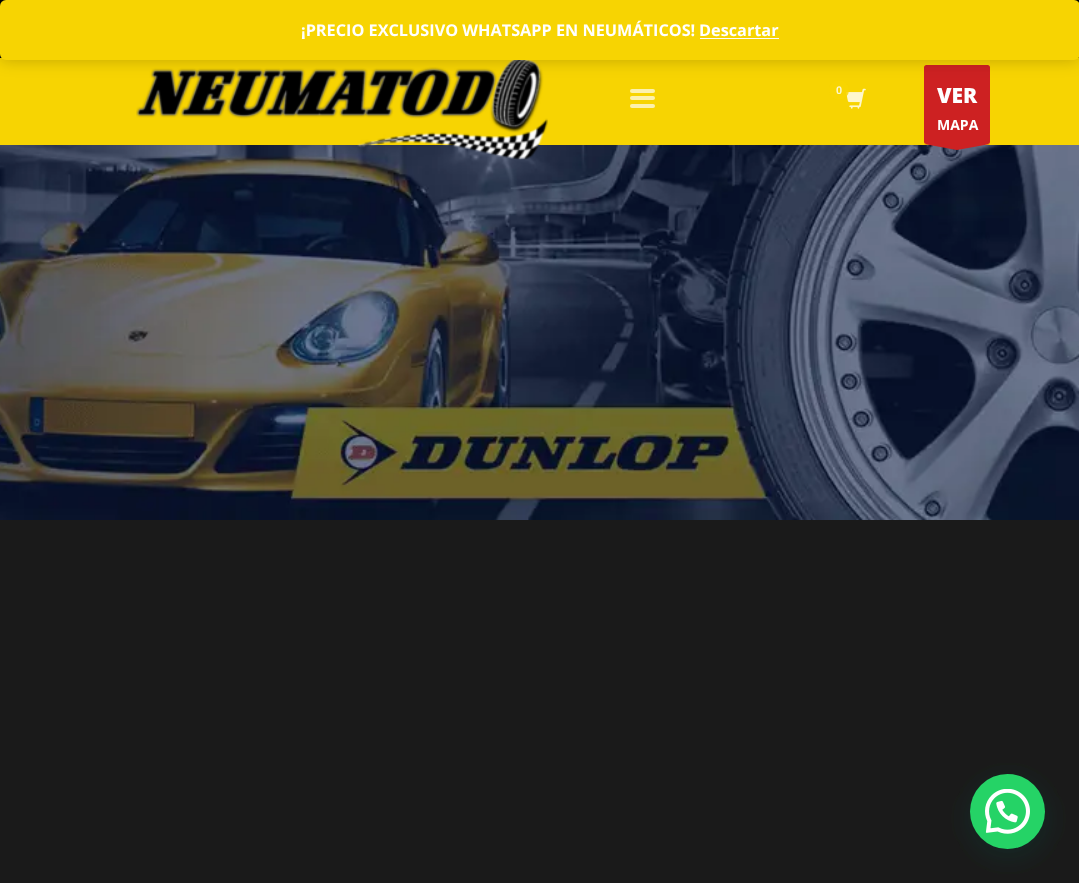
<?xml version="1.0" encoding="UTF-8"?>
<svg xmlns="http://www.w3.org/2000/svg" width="1079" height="883">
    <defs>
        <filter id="blur1" x="-50%" y="-200%" width="200%" height="500%"><feGaussianBlur stdDeviation="8"/></filter>
        <filter id="blur2" x="-50%" y="-200%" width="200%" height="500%"><feGaussianBlur stdDeviation="15"/></filter>
    </defs>
    <rect width="100%" height="100%" fill="#1A1A1A"/>
    <rect x="0" y="58" width="1079" height="87" fill="#F7D402"/>
    <rect x="0" y="0" width="1079" height="58" fill="#000000"/>
    <image x="0" y="145" width="1079" height="375" href="img_03.png"/>
    <image x="136" y="60" width="412" height="100" href="img_01.png"/>
    <image x="846" y="88" width="20" height="21" href="img_02.png"/>
    <circle cx="839" cy="90" r="10" fill="#F7D402" fill-opacity="0.8"/>
    <rect x="924" y="65" width="66" height="79" rx="2.5" fill="#CD2122"/>
    <rect x="0" y="1" width="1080" height="60" rx="6" fill="#000000" fill-opacity="0.2" filter="url(#blur1)"/>
    <rect x="0" y="0" width="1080" height="60" rx="6" fill="#F7D402"/>
    <text x="301" y="36" font-family="Open Sans" font-size="16.25" font-weight="700" fill="#FFFFFF">¡PRECIO EXCLUSIVO WHATSAPP EN NEUMÁTICOS!</text>
    <text x="699" y="36" font-family="Open Sans" font-size="16.25" font-weight="700" fill="#FFFFFF">Descartar</text>
    <rect x="700" y="38" width="79" height="1" fill="#FCFBFE"/>
    <rect x="630" y="89" width="25" height="4" rx="2" fill="#FCF1AE"/>
    <rect x="630" y="96" width="25" height="4" rx="2" fill="#FCF1AE"/>
    <rect x="630" y="104" width="25" height="4" rx="2" fill="#FCF1AE"/>
    <text x="836" y="94" font-family="Liberation Sans" font-size="11" font-weight="700" fill="#FDF6CC">0</text>
    <text x="937" y="103" font-family="Open Sans" font-size="21" font-weight="800" fill="#FFFFFF">VER</text>
    <text x="937" y="130" font-family="Open Sans" font-size="14" font-weight="700" fill="#FFFFFF">MAPA</text>
    <path d="M 990 144 L 957 150 L 924 144 Z" fill="#CD2122" fill-rule="evenodd"/>
    <rect x="971" y="781" width="75" height="75" rx="37.5" fill="#075E54" fill-opacity="0.24" filter="url(#blur2)"/>
    <circle cx="1007.5" cy="811.5" r="37.5" fill="#25D366"/>
    <image x="985" y="789" width="45" height="45" href="img_04.png"/>
</svg>
